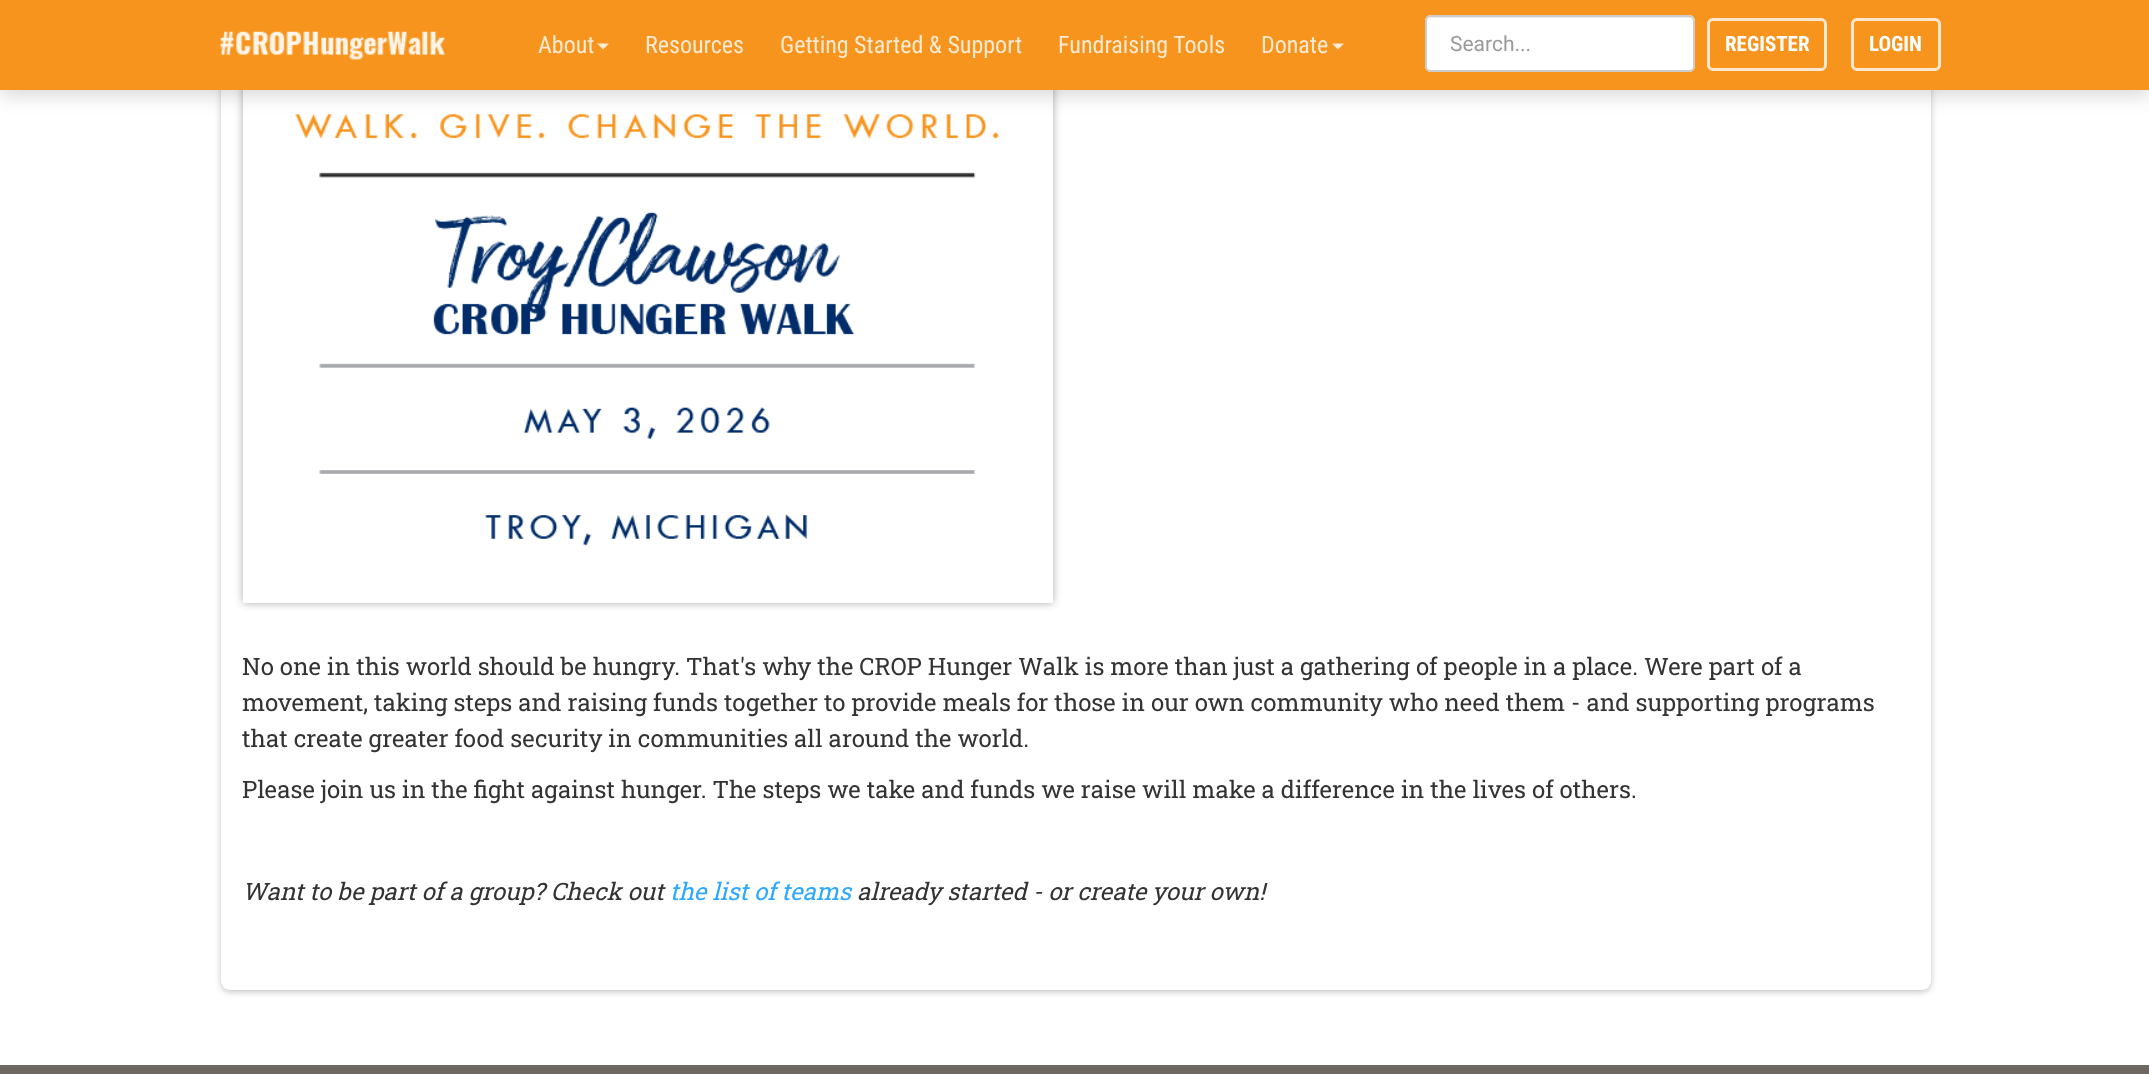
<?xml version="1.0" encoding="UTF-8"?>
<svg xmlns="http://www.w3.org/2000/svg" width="2149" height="1074">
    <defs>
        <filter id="blur1" x="-50%" y="-200%" width="200%" height="500%"><feGaussianBlur stdDeviation="3"/></filter>
        <clipPath id="clip1"><path d="M 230 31 H 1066 V 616 H 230 Z M 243 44 H 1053 V 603 H 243 Z" clip-rule="evenodd"/></clipPath>
        <filter id="blur2" x="-50%" y="-200%" width="200%" height="500%"><feGaussianBlur stdDeviation="4"/></filter>
        <filter id="blur3" x="-50%" y="-200%" width="200%" height="500%"><feGaussianBlur stdDeviation="10"/></filter>
    </defs>
    <rect width="100%" height="100%" fill="#FFFFFF"/>
    <rect x="221" y="-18" width="1710" height="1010" rx="9" fill="#000000" fill-opacity="0.23" filter="url(#blur1)"/>
    <rect x="221" y="-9" width="1710" height="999" rx="9" fill="#FFFFFF"/>
    <g clip-path="url(#clip1)">
        <rect x="243" y="44" width="810" height="559" fill="#AAAAAA" filter="url(#blur2)"/>
    </g>
    <image x="295" y="113" width="705" height="433" href="img_02.png"/>
    <rect x="0" y="5" width="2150" height="90" fill="#020303" fill-opacity="0.16" filter="url(#blur3)"/>
    <rect x="0" y="0" width="2149" height="90" fill="#F7941D"/>
    <image x="220" y="31" width="226" height="29" href="img_01.png"/>
    <text x="538" y="53" font-family="Roboto Condensed" font-size="24" fill="#FDEAD2">About</text>
    <path d="M 597 43.5 H 609 L 603 49.5 Z" fill="#FDEAD2"/>
    <text x="645" y="53" font-family="Roboto Condensed" font-size="24" fill="#FDEAD2">Resources</text>
    <text x="780" y="53" font-family="Roboto Condensed" font-size="24" fill="#FDEAD2">Getting Started &amp; Support</text>
    <text x="1058" y="53" font-family="Roboto Condensed" font-size="24" fill="#FDEAD2">Fundraising Tools</text>
    <text x="1261" y="53" font-family="Roboto Condensed" font-size="24" fill="#FDEAD2">Donate</text>
    <path d="M 1332 43.5 H 1344 L 1338 49.5 Z" fill="#FDEAD2"/>
    <rect x="1425" y="15" width="270" height="57" rx="6" fill="#FFFFFF"/>
    <path d="M 1431 18 H 1689 C 1691 18 1694 20 1694 22 C 1694 19 1692 17 1689 17 H 1432 C 1430 17 1429 18 1428 19 Z" fill="#ECECEC"/>
    <rect x="1426" y="16" width="268" height="55" rx="5" fill="none" stroke="#CCCCCC" stroke-width="2"/>
    <text x="1450" y="51" font-family="Roboto" font-size="21" fill="#999999">Search...</text>
    <rect x="1708.5" y="19.5" width="117" height="50" rx="4.5" fill="none" stroke="#FDE8CF" stroke-width="3"/>
    <text x="1725" y="51" font-family="Roboto Condensed" font-size="21" font-weight="700" fill="#FFFFFF">REGISTER</text>
    <rect x="1852.5" y="19.5" width="87" height="50" rx="4.5" fill="none" stroke="#FDE8CF" stroke-width="3"/>
    <text x="1869" y="51" font-family="Roboto Condensed" font-size="21" font-weight="700" fill="#FFFFFF">LOGIN</text>
    <text font-family="Roboto Slab" font-size="24" fill="#333333">
        <tspan x="242" y="675">No one in this world should be hungry. That's why the CROP Hunger Walk is more than just a gathering of people in a place. Were part of a</tspan>
        <tspan x="242" y="711">movement, taking steps and raising funds together to provide meals for those in our own community who need them - and supporting programs</tspan>
        <tspan x="242" y="747">that create greater food security in communities all around the world.</tspan>
    </text>
    <text x="242" y="798" font-family="Roboto Slab" font-size="24" fill="#333333">Please join us in the fight against hunger. The steps we take and funds we raise will make a difference in the lives of others.</text>
    <text x="242" y="900" font-family="Roboto Slab" font-size="24" font-style="italic" fill="#333333">Want to be part of a group? Check out</text>
    <text x="670" y="900" font-family="Roboto Slab" font-size="24" font-style="italic" fill="#2CA8FF">the list of teams</text>
    <text x="857" y="900" font-family="Roboto Slab" font-size="24" font-style="italic" fill="#333333">already started - or create your own!</text>
    <rect x="0" y="1065" width="2149" height="9" fill="#6D6862"/>
</svg>
